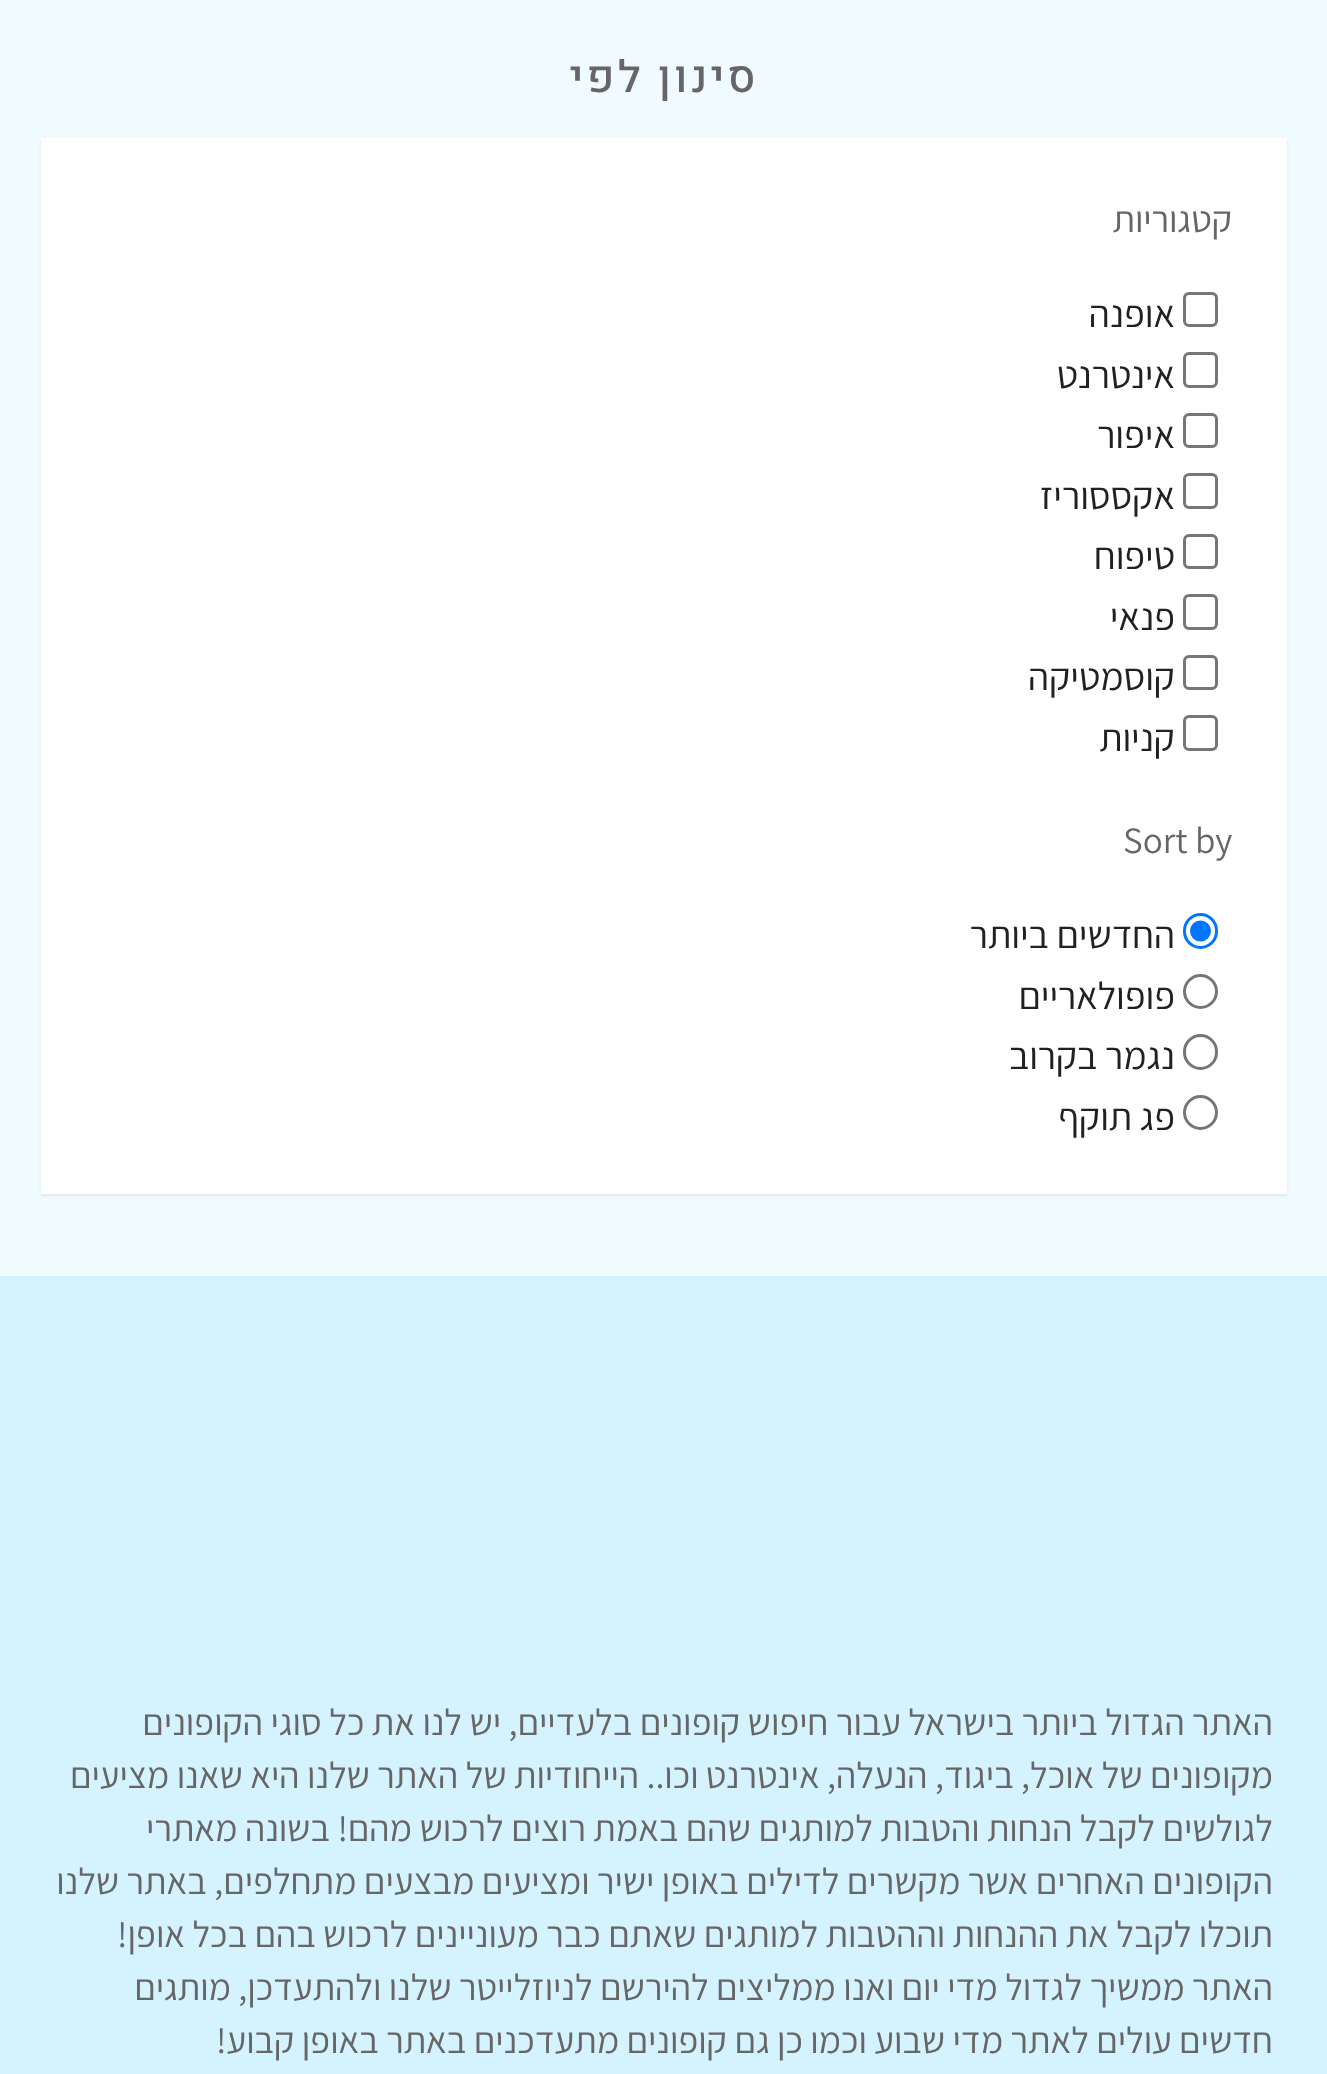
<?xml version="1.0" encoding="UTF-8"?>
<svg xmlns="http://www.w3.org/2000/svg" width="1327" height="2074">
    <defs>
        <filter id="blur1" x="-50%" y="-200%" width="200%" height="500%"><feGaussianBlur stdDeviation="1.5"/></filter>
    </defs>
    <rect width="100%" height="100%" fill="#F0FBFF"/>
    <text x="759" y="92" font-family="Heebo" font-size="44" font-weight="500" letter-spacing="3.25" direction="rtl" fill="#666666">סינון לפי</text>
    <rect x="41" y="140" width="1246" height="1056" fill="#000000" fill-opacity="0.08" filter="url(#blur1)"/>
    <rect x="41" y="138" width="1246" height="1056" fill="#FFFFFF"/>
    <text x="1232" y="232" font-family="Assistant" font-size="37.1" font-weight="200" direction="rtl" fill="#666666">קטגוריות</text>
    <rect x="1184.5" y="293.5" width="32" height="32" rx="4.5" fill="none" stroke="#767676" stroke-width="3"/>
    <text x="1175" y="327" font-family="Assistant" font-size="38.5" font-weight="200" direction="rtl" fill="#212121">אופנה</text>
    <rect x="1184.5" y="353.5" width="32" height="33" rx="4.5" fill="none" stroke="#767676" stroke-width="3"/>
    <text x="1175" y="388" font-family="Assistant" font-size="38.5" font-weight="200" direction="rtl" fill="#212121">אינטרנט</text>
    <rect x="1184.5" y="414.5" width="32" height="32" rx="4.5" fill="none" stroke="#767676" stroke-width="3"/>
    <text x="1175" y="448" font-family="Assistant" font-size="38.5" font-weight="200" direction="rtl" fill="#212121">איפור</text>
    <rect x="1184.5" y="474.5" width="32" height="33" rx="4.5" fill="none" stroke="#767676" stroke-width="3"/>
    <text x="1175" y="509" font-family="Assistant" font-size="38.5" font-weight="200" direction="rtl" fill="#212121">אקססוריז</text>
    <rect x="1184.5" y="535.5" width="32" height="32" rx="4.5" fill="none" stroke="#767676" stroke-width="3"/>
    <text x="1175" y="569" font-family="Assistant" font-size="38.5" font-weight="200" direction="rtl" fill="#212121">טיפוח</text>
    <rect x="1184.5" y="595.5" width="32" height="33" rx="4.5" fill="none" stroke="#767676" stroke-width="3"/>
    <text x="1175" y="630" font-family="Assistant" font-size="38.5" font-weight="200" direction="rtl" fill="#212121">פנאי</text>
    <rect x="1184.5" y="656.5" width="32" height="32" rx="4.5" fill="none" stroke="#767676" stroke-width="3"/>
    <text x="1175" y="690" font-family="Assistant" font-size="38.5" font-weight="200" direction="rtl" fill="#212121">קוסמטיקה</text>
    <rect x="1184.5" y="716.5" width="32" height="33" rx="4.5" fill="none" stroke="#767676" stroke-width="3"/>
    <text x="1175" y="751" font-family="Assistant" font-size="38.5" font-weight="200" direction="rtl" fill="#212121">קניות</text>
    <text x="1123" y="853" font-family="Assistant" font-size="37.1" font-weight="200" fill="#666666">Sort by</text>
    <rect x="1184.5" y="914.5" width="32" height="33" rx="16" fill="none" stroke="#0075FF" stroke-width="3"/>
    <circle cx="1200.5" cy="931" r="10.5" fill="#0075FF"/>
    <text x="1175" y="948" font-family="Assistant" font-size="38.5" font-weight="200" direction="rtl" fill="#212121">החדשים ביותר</text>
    <circle cx="1200.5" cy="991.5" r="16" fill="none" stroke="#767676" stroke-width="3"/>
    <text x="1175" y="1009" font-family="Assistant" font-size="38.5" font-weight="200" direction="rtl" fill="#212121">פופולאריים</text>
    <rect x="1184.5" y="1035.5" width="32" height="33" rx="16" fill="none" stroke="#767676" stroke-width="3"/>
    <text x="1175" y="1069" font-family="Assistant" font-size="38.5" font-weight="200" direction="rtl" fill="#212121">נגמר בקרוב</text>
    <circle cx="1200.5" cy="1112.5" r="16" fill="none" stroke="#767676" stroke-width="3"/>
    <text x="1175" y="1130" font-family="Assistant" font-size="38.5" font-weight="200" direction="rtl" fill="#212121">פג תוקף</text>
    <rect x="0" y="1276" width="1327" height="798" fill="#D4F3FF"/>
    <text font-family="Assistant" font-size="37.1" font-weight="200" direction="rtl" fill="#666666">
        <tspan x="1273" y="1735">האתר הגדול ביותר בישראל עבור חיפוש קופונים בלעדיים, יש לנו את כל סוגי הקופונים</tspan>
        <tspan x="1273" y="1788">מקופונים של אוכל, ביגוד, הנעלה, אינטרנט וכו.. הייחודיות של האתר שלנו היא שאנו מציעים</tspan>
        <tspan x="1273" y="1841">לגולשים לקבל הנחות והטבות למותגים שהם באמת רוצים לרכוש מהם! בשונה מאתרי</tspan>
        <tspan x="1273" y="1894">הקופונים האחרים אשר מקשרים לדילים באופן ישיר ומציעים מבצעים מתחלפים, באתר שלנו</tspan>
        <tspan x="1273" y="1947">תוכלו לקבל את ההנחות וההטבות למותגים שאתם כבר מעוניינים לרכוש בהם בכל אופן!</tspan>
        <tspan x="1273" y="2000">האתר ממשיך לגדול מדי יום ואנו ממליצים להירשם לניוזלייטר שלנו ולהתעדכן, מותגים</tspan>
        <tspan x="1273" y="2053">חדשים עולים לאתר מדי שבוע וכמו כן גם קופונים מתעדכנים באתר באופן קבוע!</tspan>
    </text>
</svg>
